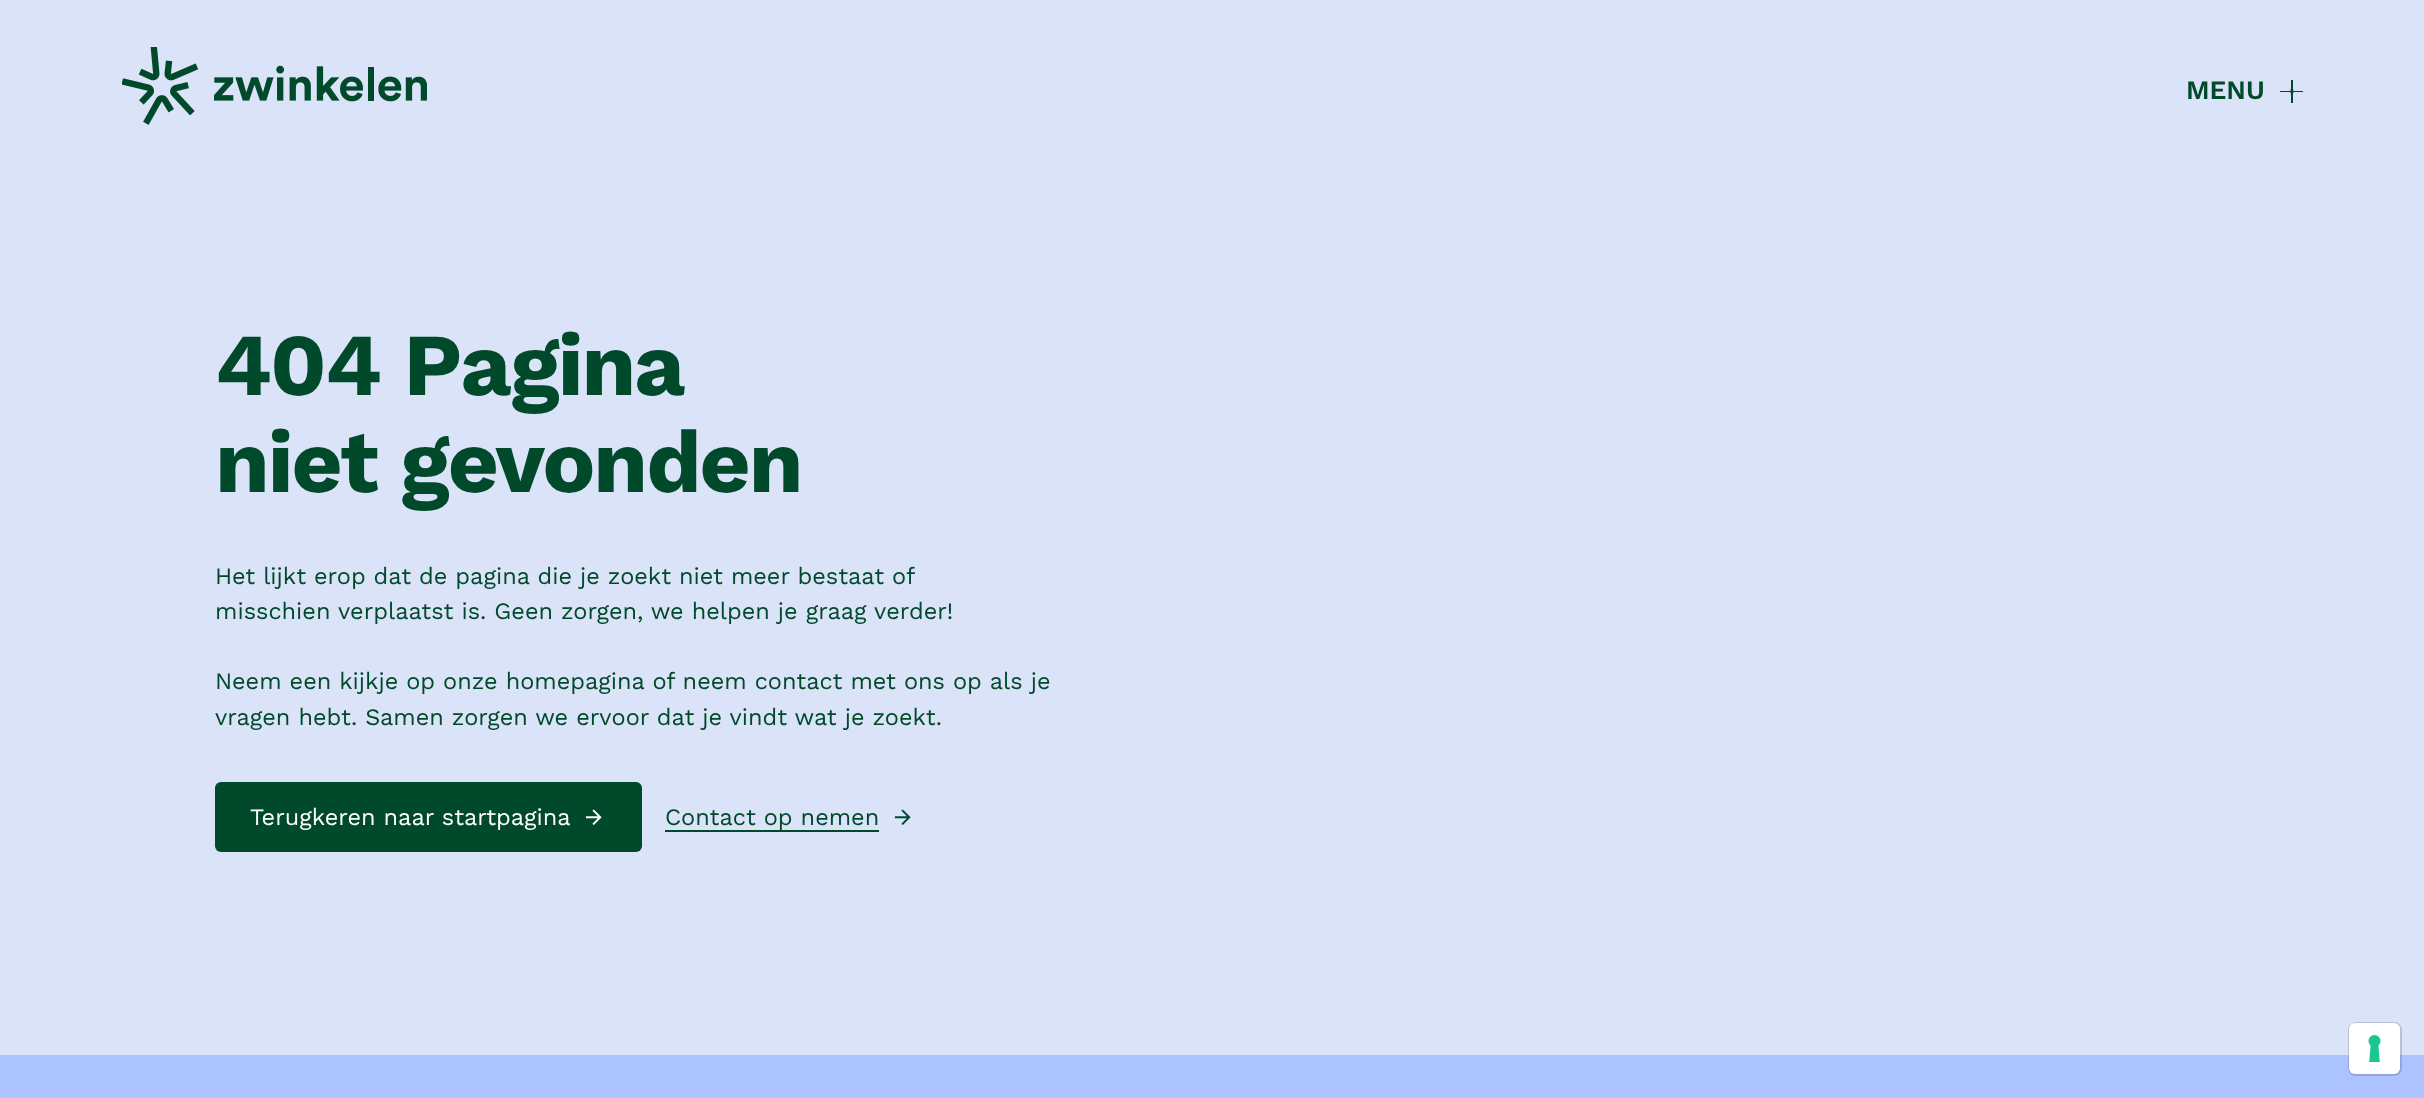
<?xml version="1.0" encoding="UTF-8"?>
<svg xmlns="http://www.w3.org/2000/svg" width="2424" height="1098">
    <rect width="100%" height="100%" fill="#DBE3F9"/>
    <image x="122" y="47" width="305" height="78" href="img_01.png"/>
    <text x="2186" y="99" font-family="Work Sans" font-size="26.5" font-weight="600" fill="#00492B">MENU</text>
    <image x="2280" y="80" width="23" height="23" href="img_02.png"/>
    <text font-family="Work Sans" font-size="88.25" font-weight="700" letter-spacing="-1.9" fill="#00492B">
        <tspan x="215" y="395">404 Pagina</tspan>
        <tspan x="215" y="492">niet gevonden</tspan>
    </text>
    <text font-family="Work Sans" font-size="23.5" fill="#00492B">
        <tspan x="215" y="584">Het lijkt erop dat de pagina die je zoekt niet meer bestaat of</tspan>
        <tspan x="215" y="619">misschien verplaatst is. Geen zorgen, we helpen je graag verder!</tspan>
    </text>
    <text font-family="Work Sans" font-size="23.5" fill="#00492B">
        <tspan x="215" y="689">Neem een kijkje op onze homepagina of neem contact met ons op als je</tspan>
        <tspan x="215" y="725">vragen hebt. Samen zorgen we ervoor dat je vindt wat je zoekt.</tspan>
    </text>
    <rect x="215" y="782" width="427" height="70" rx="6" fill="#00492B"/>
    <text x="250" y="825" font-family="Work Sans" font-size="23.5" fill="#FFFFFF">Terugkeren naar startpagina</text>
    <image x="585" y="809" width="17" height="16" href="img_03.png"/>
    <text x="665" y="825" font-family="Work Sans" font-size="23.5" fill="#00492B">Contact op nemen</text>
    <rect x="665" y="830" width="214" height="2" fill="#00492B"/>
    <image x="894" y="809" width="17" height="16" href="img_04.png"/>
    <rect x="0" y="1055" width="2424" height="43" fill="#ABC3FF"/>
    <rect x="2349" y="1023" width="52" height="52" rx="7" fill="none" stroke="#000000" stroke-opacity="0.15" stroke-width="2"/>
    <rect x="2349" y="1023" width="51" height="51" rx="6" fill="#FFFFFF"/>
    <image x="2368" y="1035" width="13" height="27" href="img_05.png"/>
</svg>
